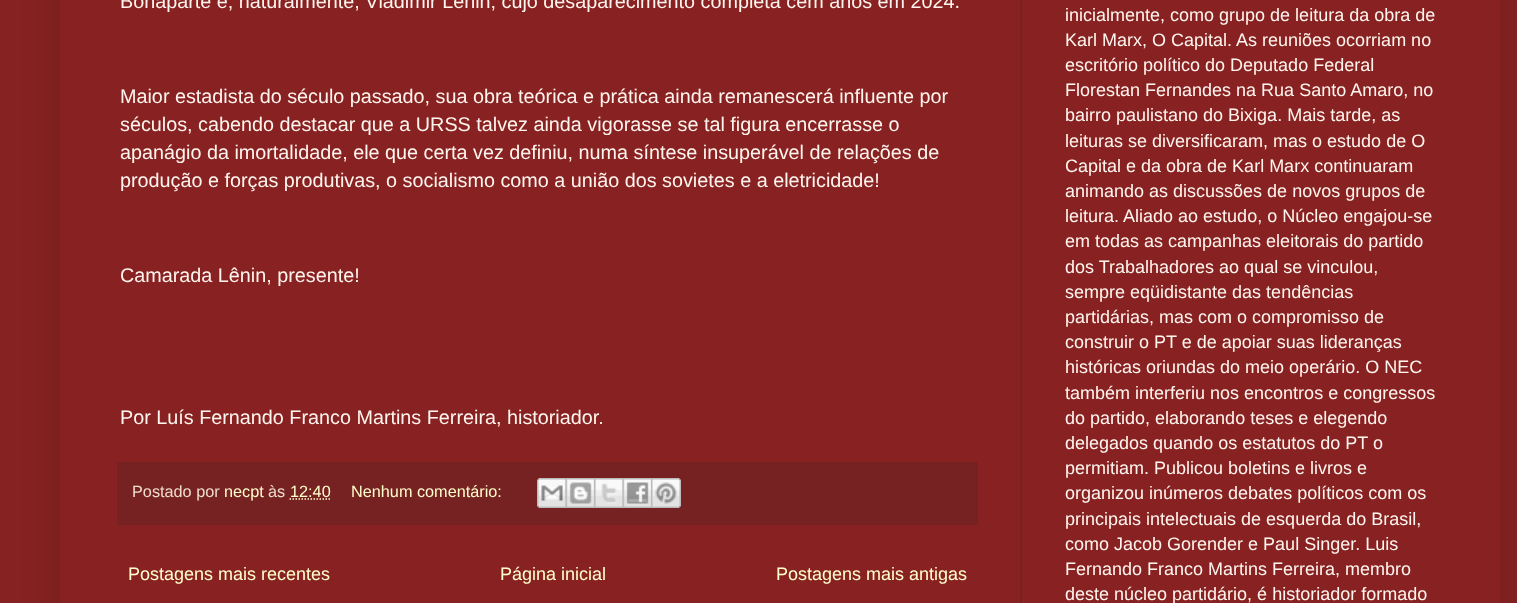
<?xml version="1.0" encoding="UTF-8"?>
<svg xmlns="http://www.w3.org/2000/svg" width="1517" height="603">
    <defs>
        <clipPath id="clip1"><path d="M 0 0 H 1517 V 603 H 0 Z M 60 -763 H 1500 V 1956 H 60 Z" clip-rule="evenodd"/></clipPath>
        <filter id="blur1" x="-50%" y="-200%" width="200%" height="500%"><feGaussianBlur stdDeviation="30"/></filter>
    </defs>
    <rect width="100%" height="100%" fill="#882222"/>
    <g clip-path="url(#clip1)">
        <rect x="60" y="-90" width="1440" height="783" fill="#000000" fill-opacity="0.15" filter="url(#blur1)"/>
    </g>
    <text x="120" y="8" font-family="Liberation Sans" font-size="19.8" fill="#FFF5EE">Bonaparte e, naturalmente, Vladimir Lenin, cujo desaparecimento completa cem anos em 2024.</text>
    <text font-family="Liberation Sans" font-size="19.8" fill="#FFF5EE">
        <tspan x="120" y="103">Maior estadista do século passado, sua obra teórica e prática ainda remanescerá influente por</tspan>
        <tspan x="120" y="131">séculos, cabendo destacar que a URSS talvez ainda vigorasse se tal figura encerrasse o</tspan>
        <tspan x="120" y="159">apanágio da imortalidade, ele que certa vez definiu, numa síntese insuperável de relações de</tspan>
        <tspan x="120" y="187">produção e forças produtivas, o socialismo como a união dos sovietes e a eletricidade!</tspan>
    </text>
    <text x="120" y="282" font-family="Liberation Sans" font-size="19.8" fill="#FFF5EE">Camarada Lênin, presente!</text>
    <text x="120" y="424" font-family="Liberation Sans" font-size="19.8" fill="#FFF5EE">Por Luís Fernando Franco Martins Ferreira, historiador.</text>
    <rect x="117" y="462" width="861" height="63" fill="#772222"/>
    <text x="132" y="497" font-family="Liberation Sans" font-size="16.25" fill="#EEDDCC">Postado por</text>
    <text x="224" y="497" font-family="Liberation Sans" font-size="16.25" fill="#FFFFCC">necpt</text>
    <text x="268" y="497" font-family="Liberation Sans" font-size="16.25" fill="#EEDDCC">às</text>
    <text x="290" y="497" font-family="Liberation Sans" font-size="16.25" fill="#FFFFCC">12:40</text>
    <path d="M 289.5 499 H 330" fill="none" stroke="#FFFFCC" stroke-width="1.5" stroke-dasharray="1.5 1.5"/>
    <text x="351" y="497" font-family="Liberation Sans" font-size="16.25" fill="#FFFFCC">Nenhum comentário:</text>
    <image x="537" y="478" width="29" height="30" href="img_01.png"/>
    <image x="565" y="478" width="29" height="30" href="img_02.png"/>
    <image x="594" y="478" width="29" height="30" href="img_03.png"/>
    <image x="622" y="478" width="29" height="30" href="img_04.png"/>
    <image x="651" y="478" width="30" height="30" href="img_05.png"/>
    <text x="128" y="580" font-family="Liberation Sans" font-size="18" fill="#FFFFCC">Postagens mais recentes</text>
    <text x="500" y="580" font-family="Liberation Sans" font-size="18" fill="#FFFFCC">Página inicial</text>
    <text x="776" y="580" font-family="Liberation Sans" font-size="18" fill="#FFFFCC">Postagens mais antigas</text>
    <text font-family="Liberation Sans" font-size="18" fill="#FFF5EE">
        <tspan x="1065" y="21">inicialmente, como grupo de leitura da obra de</tspan>
        <tspan x="1065" y="46">Karl Marx, O Capital. As reuniões ocorriam no</tspan>
        <tspan x="1065" y="71">escritório político do Deputado Federal</tspan>
        <tspan x="1065" y="96">Florestan Fernandes na Rua Santo Amaro, no</tspan>
        <tspan x="1065" y="121">bairro paulistano do Bixiga. Mais tarde, as</tspan>
        <tspan x="1065" y="147">leituras se diversificaram, mas o estudo de O</tspan>
        <tspan x="1065" y="172">Capital e da obra de Karl Marx continuaram</tspan>
        <tspan x="1065" y="197">animando as discussões de novos grupos de</tspan>
        <tspan x="1065" y="222">leitura. Aliado ao estudo, o Núcleo engajou-se</tspan>
        <tspan x="1065" y="247">em todas as campanhas eleitorais do partido</tspan>
        <tspan x="1065" y="273">dos Trabalhadores ao qual se vinculou,</tspan>
        <tspan x="1065" y="298">sempre eqüidistante das tendências</tspan>
        <tspan x="1065" y="323">partidárias, mas com o compromisso de</tspan>
        <tspan x="1065" y="348">construir o PT e de apoiar suas lideranças</tspan>
        <tspan x="1065" y="373">históricas oriundas do meio operário. O NEC</tspan>
        <tspan x="1065" y="399">também interferiu nos encontros e congressos</tspan>
        <tspan x="1065" y="424">do partido, elaborando teses e elegendo</tspan>
        <tspan x="1065" y="449">delegados quando os estatutos do PT o</tspan>
        <tspan x="1065" y="474">permitiam. Publicou boletins e livros e</tspan>
        <tspan x="1065" y="499">organizou inúmeros debates políticos com os</tspan>
        <tspan x="1065" y="525">principais intelectuais de esquerda do Brasil,</tspan>
        <tspan x="1065" y="550">como Jacob Gorender e Paul Singer. Luis</tspan>
        <tspan x="1065" y="575">Fernando Franco Martins Ferreira, membro</tspan>
        <tspan x="1065" y="600">deste núcleo partidário, é historiador formado</tspan>
    </text>
    <rect x="1020" y="0" width="2" height="603" fill="#772222"/>
</svg>
